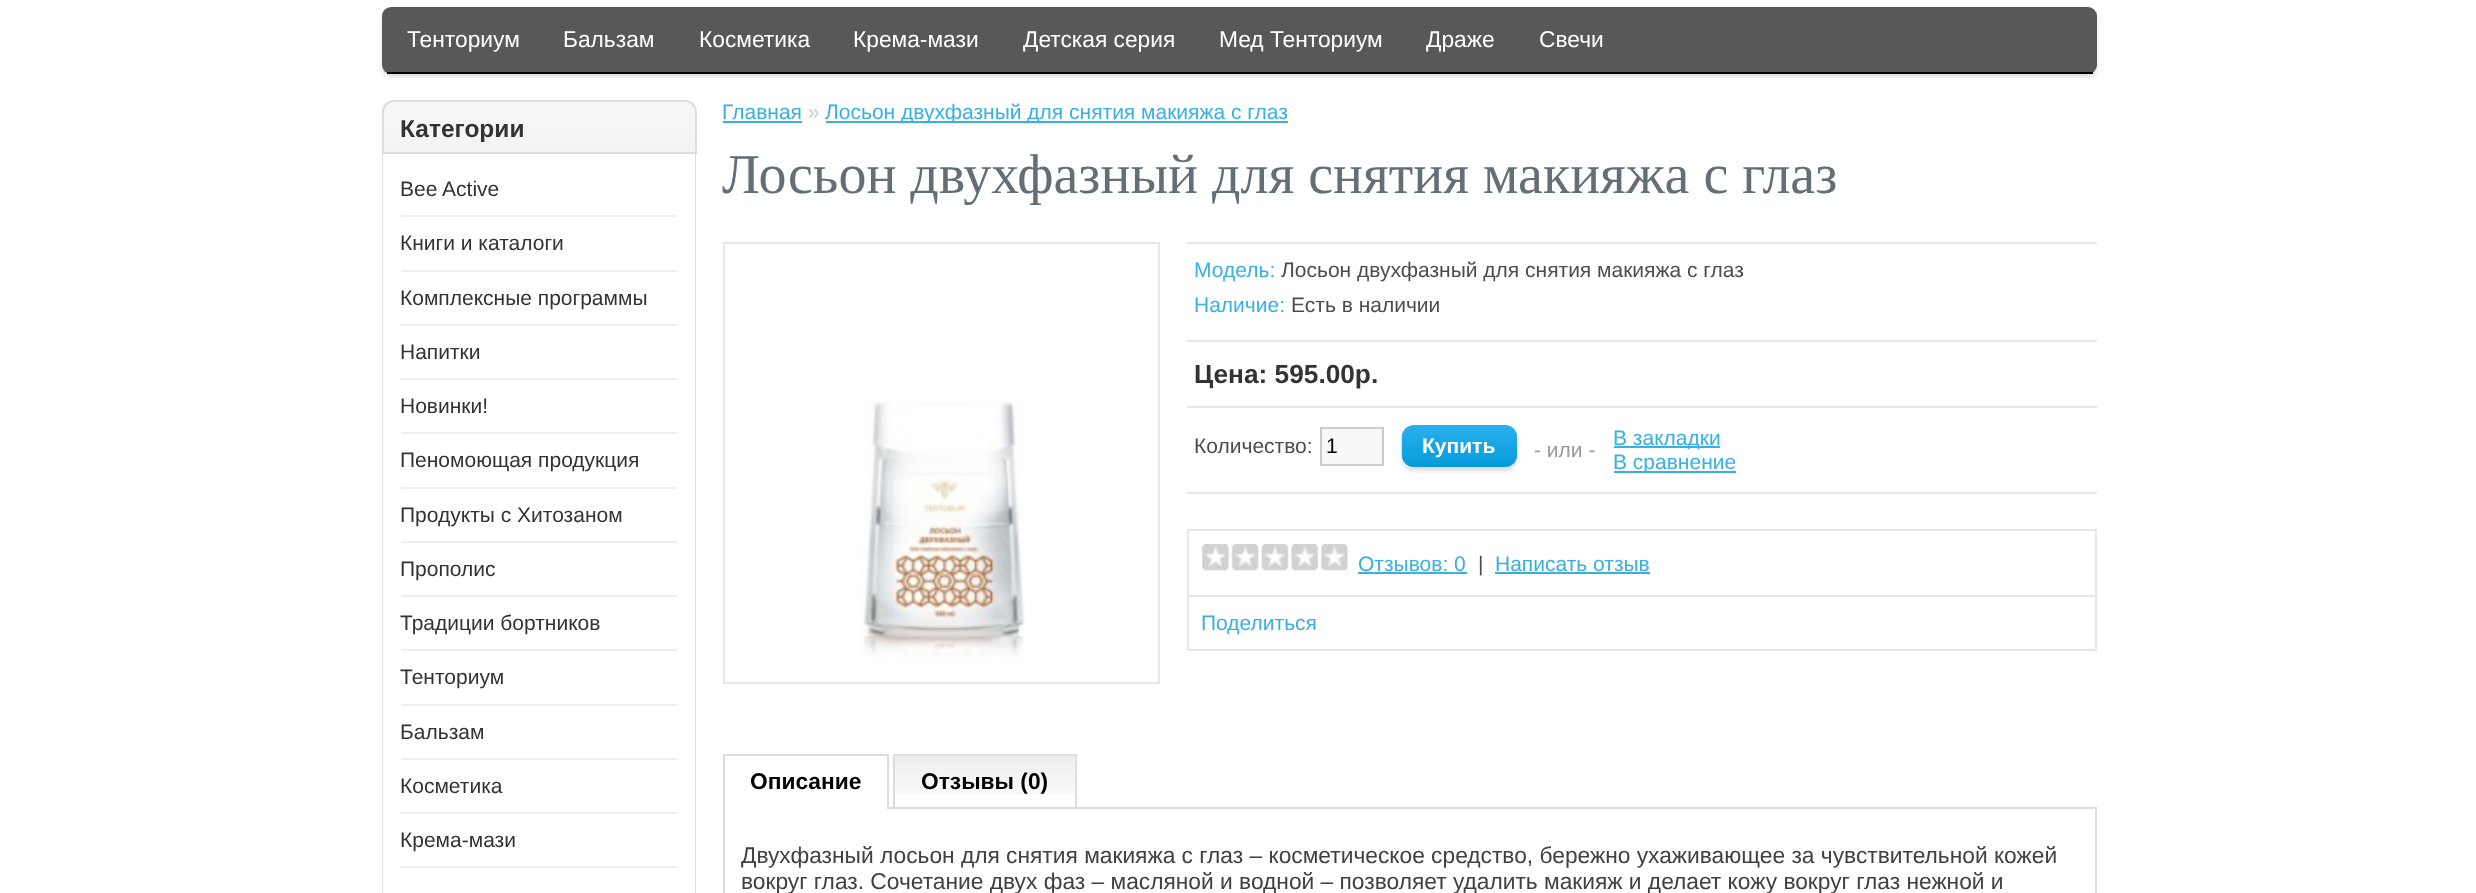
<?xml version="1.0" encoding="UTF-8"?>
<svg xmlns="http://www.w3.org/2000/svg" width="2476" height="893">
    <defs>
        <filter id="blur1" x="-50%" y="-200%" width="200%" height="500%"><feGaussianBlur stdDeviation="2"/></filter>
    </defs>
    <rect width="100%" height="100%" fill="#FFFFFF"/>
    <rect x="382" y="11" width="1715" height="66" rx="9" fill="#DDDDDD" filter="url(#blur1)"/>
    <rect x="382" y="7" width="1715" height="67" rx="9" fill="#585858"/>
    <rect x="387" y="72" width="1706" height="2" fill="#000000"/>
    <text x="407" y="47" font-family="Liberation Sans" font-size="22.75" fill="#FFFFFF">Тенториум</text>
    <text x="563" y="47" font-family="Liberation Sans" font-size="22.75" fill="#FFFFFF">Бальзам</text>
    <text x="699" y="47" font-family="Liberation Sans" font-size="22.75" fill="#FFFFFF">Косметика</text>
    <text x="853" y="47" font-family="Liberation Sans" font-size="22.75" fill="#FFFFFF">Крема-мази</text>
    <text x="1023" y="47" font-family="Liberation Sans" font-size="22.75" fill="#FFFFFF">Детская серия</text>
    <text x="1219" y="47" font-family="Liberation Sans" font-size="22.75" fill="#FFFFFF">Мед Тенториум</text>
    <text x="1426" y="47" font-family="Liberation Sans" font-size="22.75" fill="#FFFFFF">Драже</text>
    <text x="1539" y="47" font-family="Liberation Sans" font-size="22.75" fill="#FFFFFF">Свечи</text>
    <image x="382" y="101" width="314" height="51" href="img_01.png"/>
    <path d="M 394 101 H 685 C 691 101 696 106 696 112 V 153 H 383 V 112 C 383 106 388 101 394 101 Z" fill="none" stroke="#DBDEE1" stroke-width="2"/>
    <text x="400" y="137" font-family="Liberation Sans" font-size="24.5" font-weight="700" fill="#333333">Категории</text>
    <path d="M 382 154 H 696 V 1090 C 696 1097 691 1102 684 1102 H 394 C 387 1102 382 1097 382 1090 Z M 383 154 H 695 V 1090 C 695 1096 690 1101 684 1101 H 394 C 388 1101 383 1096 383 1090 Z" fill="#DBDEE1" fill-rule="evenodd"/>
    <text x="400" y="196" font-family="Liberation Sans" font-size="21" fill="#333333">Bee Active</text>
    <rect x="401" y="215" width="276" height="2" fill="#EEEEEE"/>
    <text x="400" y="250" font-family="Liberation Sans" font-size="21" fill="#333333">Книги и каталоги</text>
    <rect x="401" y="270" width="276" height="2" fill="#EEEEEE"/>
    <text x="400" y="305" font-family="Liberation Sans" font-size="21" fill="#333333">Комплексные программы</text>
    <rect x="401" y="324" width="276" height="2" fill="#EEEEEE"/>
    <text x="400" y="359" font-family="Liberation Sans" font-size="21" fill="#333333">Напитки</text>
    <rect x="401" y="378" width="276" height="2" fill="#EEEEEE"/>
    <text x="400" y="413" font-family="Liberation Sans" font-size="21" fill="#333333">Новинки!</text>
    <rect x="401" y="432" width="276" height="2" fill="#EEEEEE"/>
    <text x="400" y="467" font-family="Liberation Sans" font-size="21" fill="#333333">Пеномоющая продукция</text>
    <rect x="401" y="487" width="276" height="2" fill="#EEEEEE"/>
    <text x="400" y="522" font-family="Liberation Sans" font-size="21" fill="#333333">Продукты с Хитозаном</text>
    <rect x="401" y="541" width="276" height="2" fill="#EEEEEE"/>
    <text x="400" y="576" font-family="Liberation Sans" font-size="21" fill="#333333">Прополис</text>
    <rect x="401" y="595" width="276" height="2" fill="#EEEEEE"/>
    <text x="400" y="630" font-family="Liberation Sans" font-size="21" fill="#333333">Традиции бортников</text>
    <rect x="401" y="649" width="276" height="2" fill="#EEEEEE"/>
    <text x="400" y="684" font-family="Liberation Sans" font-size="21" fill="#333333">Тенториум</text>
    <rect x="401" y="704" width="276" height="2" fill="#EEEEEE"/>
    <text x="400" y="739" font-family="Liberation Sans" font-size="21" fill="#333333">Бальзам</text>
    <rect x="401" y="758" width="276" height="2" fill="#EEEEEE"/>
    <text x="400" y="793" font-family="Liberation Sans" font-size="21" fill="#333333">Косметика</text>
    <rect x="401" y="812" width="276" height="2" fill="#EEEEEE"/>
    <text x="400" y="847" font-family="Liberation Sans" font-size="21" fill="#333333">Крема-мази</text>
    <rect x="401" y="866" width="276" height="2" fill="#EEEEEE"/>
    <text x="722" y="119" font-family="Liberation Sans" font-size="21" fill="#38B0E3">Главная</text>
    <rect x="723" y="121" width="79" height="2" fill="#38B0E3"/>
    <text x="808" y="119" font-family="Liberation Sans" font-size="21" fill="#CCCCCC">»</text>
    <rect x="826" y="121" width="462" height="2" fill="#38B0E3"/>
    <text x="825" y="119" font-family="Liberation Sans" font-size="21" fill="#38B0E3">Лосьон двухфазный для снятия макияжа с глаз</text>
    <text x="722" y="193" font-family="Liberation Serif" font-size="56" fill="#636E75">Лосьон двухфазный для снятия макияжа с глаз</text>
    <rect x="724" y="243" width="435" height="440" fill="none" stroke="#E7E7E7" stroke-width="2"/>
    <image x="859" y="401" width="166" height="256" href="img_02.png"/>
    <rect x="1187" y="242" width="910" height="2" fill="#E7E7E7"/>
    <rect x="1187" y="340" width="910" height="2" fill="#E7E7E7"/>
    <text x="1194" y="277" font-family="Liberation Sans" font-size="21" fill="#38B0E3">Модель:</text>
    <text x="1281" y="277" font-family="Liberation Sans" font-size="21" fill="#4D4D4D">Лосьон двухфазный для снятия макияжа с глаз</text>
    <text x="1194" y="312" font-family="Liberation Sans" font-size="21" fill="#38B0E3">Наличие:</text>
    <text x="1291" y="312" font-family="Liberation Sans" font-size="21" fill="#4D4D4D">Есть в наличии</text>
    <rect x="1187" y="406" width="910" height="2" fill="#E7E7E7"/>
    <text x="1194" y="383" font-family="Liberation Sans" font-size="26.25" font-weight="700" fill="#333333">Цена: 595.00р.</text>
    <rect x="1187" y="492" width="910" height="2" fill="#E7E7E7"/>
    <text x="1194" y="453" font-family="Liberation Sans" font-size="21" fill="#4D4D4D">Количество:</text>
    <rect x="1321" y="428" width="62" height="37" fill="#F8F8F8" stroke="#CCCCCC" stroke-width="2"/>
    <text x="1326" y="453" font-family="Liberation Sans" font-size="21" fill="#000000">1</text>
    <rect x="1402" y="429" width="115" height="42" rx="12" fill="#DDDDDD" filter="url(#blur1)"/>
    <image x="1401" y="425" width="117" height="42" href="img_03.png"/>
    <text x="1422" y="453" font-family="Liberation Sans" font-size="21" font-weight="700" fill="#FFFFFF">Купить</text>
    <text x="1534" y="457" font-family="Liberation Sans" font-size="21" fill="#999999">- или -</text>
    <rect x="1614" y="446" width="106" height="2" fill="#38B0E3"/>
    <text x="1613" y="445" font-family="Liberation Sans" font-size="21" fill="#38B0E3">В закладки</text>
    <rect x="1614" y="471" width="122" height="2" fill="#38B0E3"/>
    <text x="1613" y="469" font-family="Liberation Sans" font-size="21" fill="#38B0E3">В сравнение</text>
    <rect x="1187" y="529" width="910" height="2" fill="#E7E7E7"/>
    <rect x="2095" y="529" width="2" height="122" fill="#E7E7E7"/>
    <rect x="1187" y="529" width="2" height="122" fill="#E7E7E7"/>
    <rect x="1188" y="595" width="907" height="2" fill="#E7E7E7"/>
    <image x="1202" y="544" width="146" height="27" href="img_04.png"/>
    <text x="1358" y="571" font-family="Liberation Sans" font-size="21" fill="#38B0E3">Отзывов: 0</text>
    <rect x="1358" y="572" width="109" height="2" fill="#38B0E3"/>
    <text x="1478" y="571" font-family="Liberation Sans" font-size="21" fill="#4D4D4D">|</text>
    <text x="1495" y="571" font-family="Liberation Sans" font-size="21" fill="#38B0E3">Написать отзыв</text>
    <rect x="1495" y="572" width="155" height="2" fill="#38B0E3"/>
    <rect x="1188" y="649" width="907" height="2" fill="#E7E7E7"/>
    <text x="1201" y="630" font-family="Liberation Sans" font-size="21" fill="#38B0E3">Поделиться</text>
    <rect x="889" y="807" width="1208" height="2" fill="#DDDDDD"/>
    <rect x="723" y="754" width="166" height="2" fill="#DDDDDD"/>
    <rect x="887" y="754" width="2" height="55" fill="#DDDDDD"/>
    <rect x="723" y="754" width="2" height="139" fill="#DDDDDD"/>
    <text x="750" y="789" font-family="Liberation Sans" font-size="22.75" font-weight="700" fill="#000000">Описание</text>
    <image x="892" y="755" width="183" height="40" href="img_05.png"/>
    <rect x="893" y="754" width="183" height="2" fill="#DDDDDD"/>
    <rect x="1075" y="754" width="2" height="53" fill="#DDDDDD"/>
    <rect x="893" y="754" width="2" height="53" fill="#DDDDDD"/>
    <text x="921" y="789" font-family="Liberation Sans" font-size="22.75" font-weight="700" fill="#000000">Отзывы (0)</text>
    <rect x="2095" y="809" width="2" height="84" fill="#DDDDDD"/>
    <text font-family="Liberation Sans" font-size="22.75" fill="#414141">
        <tspan x="741" y="863">Двухфазный лосьон для снятия макияжа с глаз – косметическое средство, бережно ухаживающее за чувствительной кожей</tspan>
        <tspan x="741" y="889">вокруг глаз. Сочетание двух фаз – масляной и водной – позволяет удалить макияж и делает кожу вокруг глаз нежной и</tspan>
    </text>
</svg>
